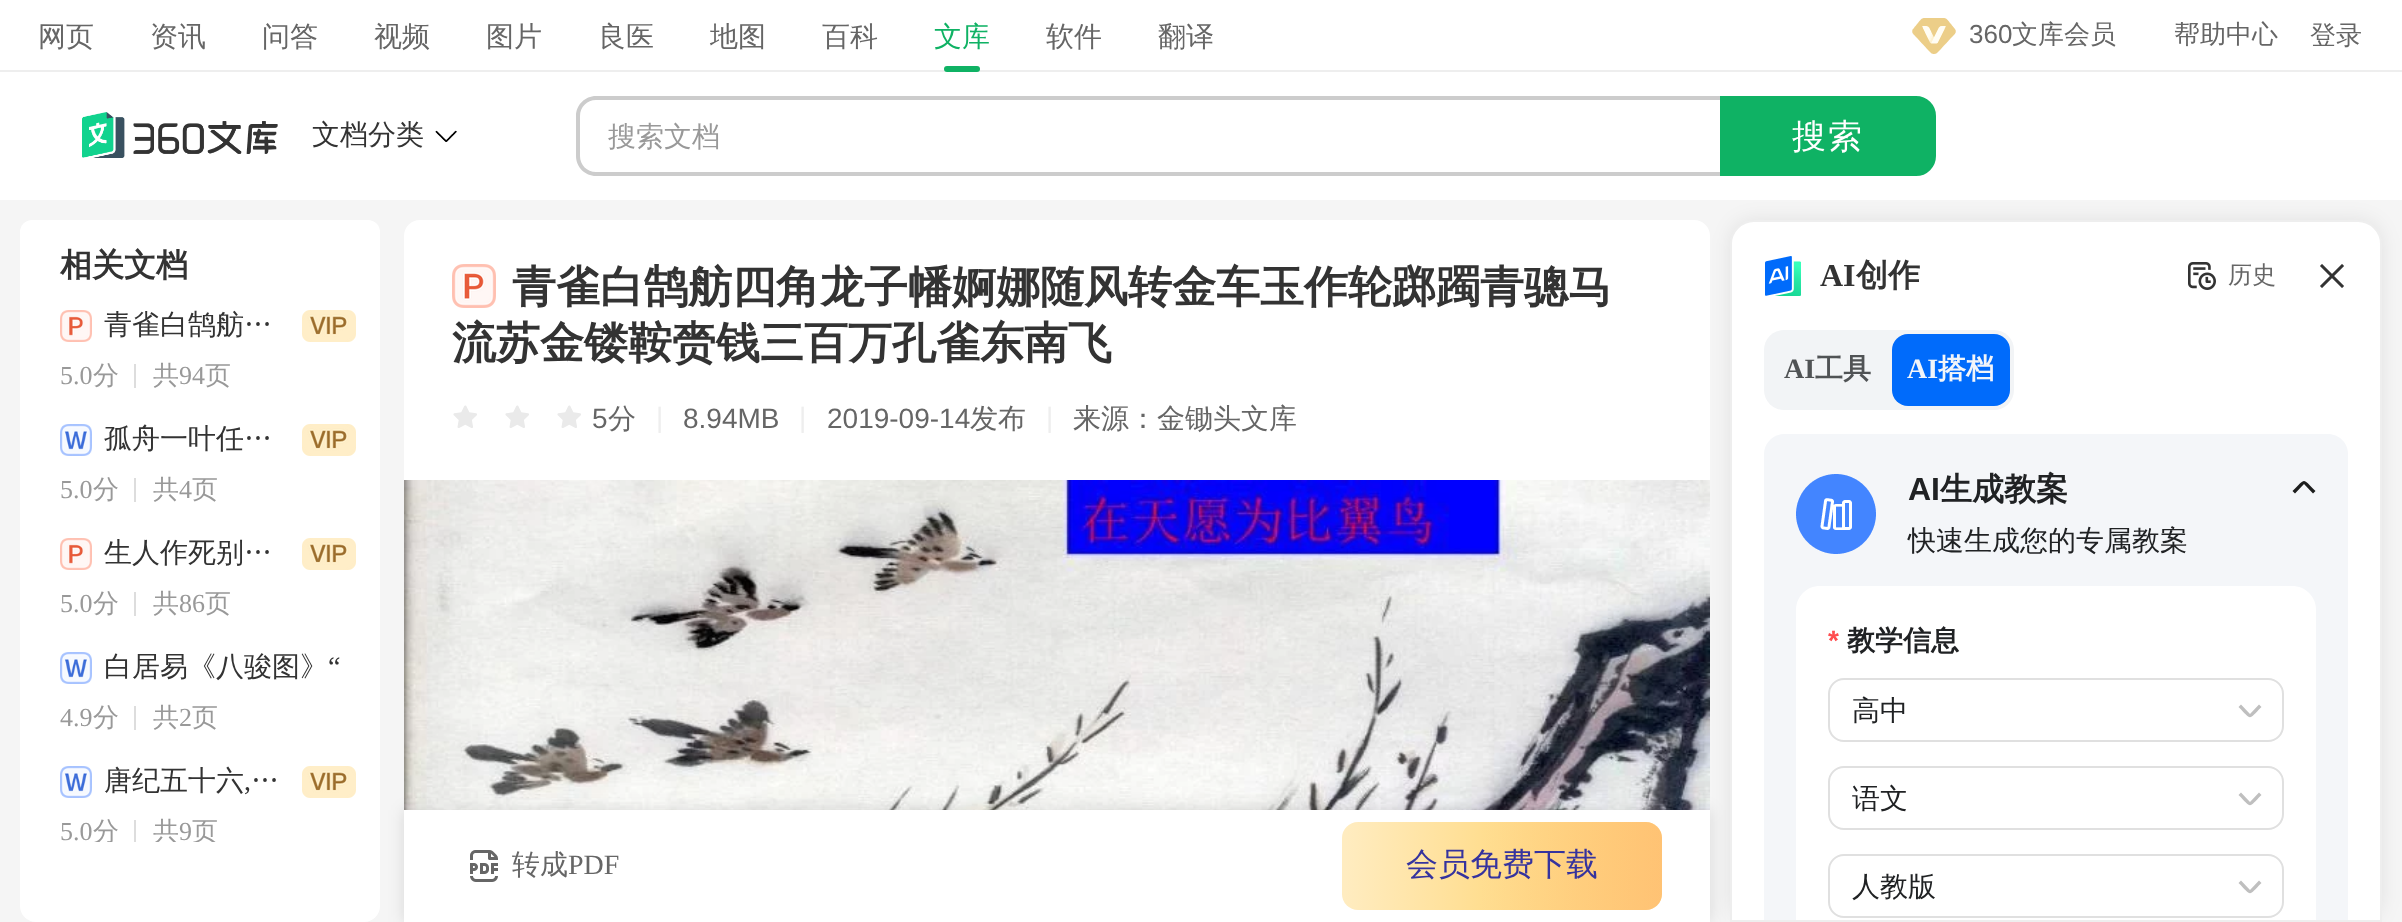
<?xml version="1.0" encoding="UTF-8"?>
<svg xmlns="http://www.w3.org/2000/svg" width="2402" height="922">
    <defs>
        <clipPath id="clip1"><rect x="60" y="296" width="316" height="546"/></clipPath>
        <filter id="blur1" x="-50%" y="-200%" width="200%" height="500%"><feGaussianBlur stdDeviation="10"/></filter>
        <filter id="blur2" x="-50%" y="-200%" width="200%" height="500%"><feGaussianBlur stdDeviation="8"/></filter>
        <linearGradient id="g1" gradientUnits="userSpaceOnUse" x1="1341" y1="863" x2="1796" y2="871"><stop offset="0.01" stop-color="#FFECC0"/><stop offset="1" stop-color="#FFBD24"/></linearGradient>
        <linearGradient id="g2" gradientUnits="userSpaceOnUse" x1="1340" y1="858" x2="1926" y2="888"><stop offset="0.24" stop-color="#FFA8DC" stop-opacity="0"/><stop offset="1" stop-color="#FFA8DC" stop-opacity="0.6"/></linearGradient>
    </defs>
    <rect width="100%" height="100%" fill="#FFFFFF"/>
    <rect x="0" y="70" width="2402" height="2" fill="#EEEEEE"/>
    <text x="38" y="46" font-family="WenQuanYi Zen Hei" font-size="28" font-weight="500" fill="#666666">网页</text>
    <text x="150" y="46" font-family="WenQuanYi Zen Hei" font-size="28" font-weight="500" fill="#666666">资讯</text>
    <text x="262" y="46" font-family="WenQuanYi Zen Hei" font-size="28" font-weight="500" fill="#666666">问答</text>
    <text x="374" y="46" font-family="WenQuanYi Zen Hei" font-size="28" font-weight="500" fill="#666666">视频</text>
    <text x="486" y="46" font-family="WenQuanYi Zen Hei" font-size="28" font-weight="500" fill="#666666">图片</text>
    <text x="598" y="46" font-family="WenQuanYi Zen Hei" font-size="28" font-weight="500" fill="#666666">良医</text>
    <text x="710" y="46" font-family="WenQuanYi Zen Hei" font-size="28" font-weight="500" fill="#666666">地图</text>
    <text x="822" y="46" font-family="WenQuanYi Zen Hei" font-size="28" font-weight="500" fill="#666666">百科</text>
    <text x="934" y="46" font-family="WenQuanYi Zen Hei" font-size="28" font-weight="500" fill="#0FB264">文库</text>
    <rect x="944" y="66" width="36" height="6" rx="3" fill="#0FB264"/>
    <text x="1046" y="46" font-family="WenQuanYi Zen Hei" font-size="28" font-weight="500" fill="#666666">软件</text>
    <text x="1158" y="46" font-family="WenQuanYi Zen Hei" font-size="28" font-weight="500" fill="#666666">翻译</text>
    <image x="1912" y="18" width="44" height="36" href="img_01.png"/>
    <text x="1969" y="43" font-family="Liberation Sans" font-size="26" fill="#666666">360</text>
    <text x="2012" y="43" font-family="WenQuanYi Zen Hei" font-size="26" font-weight="500" fill="#666666">文库会员</text>
    <text x="2174" y="43" font-family="WenQuanYi Zen Hei" font-size="26" font-weight="500" fill="#666666">帮助中心</text>
    <text x="2310" y="44" font-family="WenQuanYi Zen Hei" font-size="26" font-weight="500" fill="#666666">登录</text>
    <image x="82" y="112" width="196" height="46" href="img_02.png"/>
    <text x="312" y="144" font-family="WenQuanYi Zen Hei" font-size="28" font-weight="500" fill="#333333">文档分类</text>
    <image x="435" y="130" width="22" height="12" href="img_03.png"/>
    <path d="M 596 96 H 1720 V 176 H 596 C 585 176 576 167 576 156 V 116 C 576 105 585 96 596 96 Z M 596 100 H 1720 V 172 H 596 C 587 172 580 165 580 156 V 116 C 580 107 587 100 596 100 Z" fill="#CCCCCC" fill-rule="evenodd"/>
    <text x="608" y="146" font-family="WenQuanYi Zen Hei" font-size="28" font-weight="500" fill="#999999">搜索文档</text>
    <path d="M 1721 97 H 1916 C 1926.5 97 1935 105.5 1935 116 V 156 C 1935 166.5 1926.5 175 1916 175 H 1721 Z" fill="#0FB264" stroke="#0FB264" stroke-width="2"/>
    <text x="1792" y="148" font-family="WenQuanYi Zen Hei" font-size="34" font-weight="500" letter-spacing="2" fill="#FFFFFF">搜索</text>
    <rect x="0" y="200" width="2402" height="722" fill="#F5F5F5"/>
    <rect x="20" y="220" width="360" height="702" rx="16" fill="#FFFFFF"/>
    <rect x="20" y="220" width="360" height="650" rx="12" fill="#FFFFFF"/>
    <text x="60" y="276" font-family="WenQuanYi Zen Hei" font-size="32" font-weight="700" fill="#333333">相关文档</text>
    <image x="60" y="310" width="32" height="32" href="img_04.png"/>
    <text x="104" y="334" font-family="WenQuanYi Zen Hei" font-size="28" font-weight="500" fill="#333333">青雀白鹄舫…</text>
    <image x="302" y="310" width="54" height="32" href="img_05.png"/>
    <text x="60" y="384" font-family="Liberation Serif" font-size="26" fill="#999999">5.0</text>
    <text x="93" y="384" font-family="WenQuanYi Zen Hei" font-size="26" font-weight="500" fill="#999999">分</text>
    <rect x="134" y="364" width="2" height="24" fill="#DDDDDD"/>
    <text x="153" y="384" font-family="WenQuanYi Zen Hei" font-size="26" font-weight="500" fill="#999999">共</text>
    <text x="179" y="384" font-family="Liberation Serif" font-size="26" fill="#999999">94</text>
    <text x="205" y="384" font-family="WenQuanYi Zen Hei" font-size="26" font-weight="500" fill="#999999">页</text>
    <image x="60" y="424" width="32" height="32" href="img_06.png"/>
    <text x="104" y="448" font-family="WenQuanYi Zen Hei" font-size="28" font-weight="500" fill="#333333">孤舟一叶任…</text>
    <image x="302" y="424" width="54" height="32" href="img_05.png"/>
    <text x="60" y="498" font-family="Liberation Serif" font-size="26" fill="#999999">5.0</text>
    <text x="93" y="498" font-family="WenQuanYi Zen Hei" font-size="26" font-weight="500" fill="#999999">分</text>
    <rect x="134" y="478" width="2" height="24" fill="#DDDDDD"/>
    <text x="153" y="498" font-family="WenQuanYi Zen Hei" font-size="26" font-weight="500" fill="#999999">共</text>
    <text x="179" y="498" font-family="Liberation Serif" font-size="26" fill="#999999">4</text>
    <text x="192" y="498" font-family="WenQuanYi Zen Hei" font-size="26" font-weight="500" fill="#999999">页</text>
    <image x="60" y="538" width="32" height="32" href="img_04.png"/>
    <text x="104" y="562" font-family="WenQuanYi Zen Hei" font-size="28" font-weight="500" fill="#333333">生人作死别…</text>
    <image x="302" y="538" width="54" height="32" href="img_05.png"/>
    <text x="60" y="612" font-family="Liberation Serif" font-size="26" fill="#999999">5.0</text>
    <text x="93" y="612" font-family="WenQuanYi Zen Hei" font-size="26" font-weight="500" fill="#999999">分</text>
    <rect x="134" y="592" width="2" height="24" fill="#DDDDDD"/>
    <text x="153" y="612" font-family="WenQuanYi Zen Hei" font-size="26" font-weight="500" fill="#999999">共</text>
    <text x="179" y="612" font-family="Liberation Serif" font-size="26" fill="#999999">86</text>
    <text x="205" y="612" font-family="WenQuanYi Zen Hei" font-size="26" font-weight="500" fill="#999999">页</text>
    <image x="60" y="652" width="32" height="32" href="img_06.png"/>
    <text x="104" y="676" font-family="WenQuanYi Zen Hei" font-size="28" font-weight="500" fill="#333333">白居易《八骏图》</text>
    <text x="328" y="676" font-family="Liberation Serif" font-size="28" fill="#333333">“</text>
    <text x="60" y="726" font-family="Liberation Serif" font-size="26" fill="#999999">4.9</text>
    <text x="93" y="726" font-family="WenQuanYi Zen Hei" font-size="26" font-weight="500" fill="#999999">分</text>
    <rect x="134" y="706" width="2" height="24" fill="#DDDDDD"/>
    <text x="153" y="726" font-family="WenQuanYi Zen Hei" font-size="26" font-weight="500" fill="#999999">共</text>
    <text x="179" y="726" font-family="Liberation Serif" font-size="26" fill="#999999">2</text>
    <text x="192" y="726" font-family="WenQuanYi Zen Hei" font-size="26" font-weight="500" fill="#999999">页</text>
    <image x="60" y="766" width="32" height="32" href="img_06.png"/>
    <text x="104" y="790" font-family="WenQuanYi Zen Hei" font-size="28" font-weight="500" fill="#333333">唐纪五十六</text>
    <text x="251" y="790" font-family="WenQuanYi Zen Hei" font-size="28" font-weight="500" fill="#333333">…</text>
    <text x="244" y="790" font-family="Liberation Serif" font-size="28" fill="#333333">,</text>
    <image x="302" y="766" width="54" height="32" href="img_05.png"/>
    <text x="60" y="840" font-family="Liberation Serif" font-size="26" fill="#999999">5.0</text>
    <g clip-path="url(#clip1)">
        <text x="93" y="840" font-family="WenQuanYi Zen Hei" font-size="26" font-weight="500" fill="#999999">分</text>
    </g>
    <rect x="134" y="820" width="2" height="22" fill="#DDDDDD"/>
    <g clip-path="url(#clip1)">
        <text x="153" y="840" font-family="WenQuanYi Zen Hei" font-size="26" font-weight="500" fill="#999999">共</text>
    </g>
    <text x="179" y="840" font-family="Liberation Serif" font-size="26" fill="#999999">9</text>
    <g clip-path="url(#clip1)">
        <text x="192" y="840" font-family="WenQuanYi Zen Hei" font-size="26" font-weight="500" fill="#999999">页</text>
    </g>
    <path d="M 420 220 H 1694 C 1703 220 1710 227 1710 236 V 480 H 404 V 236 C 404 227 411 220 420 220 Z" fill="#FFFFFF"/>
    <image x="452" y="264" width="44" height="44" href="img_07.png"/>
    <text x="512" y="302" font-family="WenQuanYi Zen Hei" font-size="44" font-weight="700" fill="#333333">青雀白鹄舫四角龙子幡婀娜随风转金车玉作轮踯躅青骢马</text>
    <text x="452" y="358" font-family="WenQuanYi Zen Hei" font-size="44" font-weight="700" fill="#333333">流苏金镂鞍赍钱三百万孔雀东南飞</text>
    <image x="453" y="405" width="24" height="23" href="img_08.png"/>
    <image x="505" y="405" width="24" height="23" href="img_09.png"/>
    <image x="557" y="405" width="24" height="23" href="img_08.png"/>
    <text x="592" y="428" font-family="Liberation Sans" font-size="28" fill="#666666">5</text>
    <text x="608" y="428" font-family="WenQuanYi Zen Hei" font-size="28" font-weight="500" fill="#666666">分</text>
    <text x="656" y="427" font-family="Liberation Sans" font-size="28" fill="#EEEEEE">|</text>
    <text x="683" y="428" font-family="Liberation Sans" font-size="28" fill="#666666">8.94MB</text>
    <text x="799" y="427" font-family="Liberation Sans" font-size="28" fill="#EEEEEE">|</text>
    <text x="827" y="428" font-family="Liberation Sans" font-size="28" fill="#666666">2019-09-14</text>
    <text x="970" y="428" font-family="WenQuanYi Zen Hei" font-size="28" font-weight="500" fill="#666666">发布</text>
    <text x="1046" y="427" font-family="Liberation Sans" font-size="28" fill="#EEEEEE">|</text>
    <text x="1073" y="428" font-family="WenQuanYi Zen Hei" font-size="28" font-weight="500" fill="#666666">来源：金锄头文库</text>
    <image x="404" y="480" width="1306" height="330" href="img_10.png"/>
    <rect x="1730" y="220" width="652" height="702" rx="24" fill="#000000" fill-opacity="0.08" filter="url(#blur1)"/>
    <path d="M 1754 221 H 2358 C 2370.5 221 2381 231.5 2381 244 V 921 H 1731 V 244 C 1731 231.5 1741.5 221 1754 221 Z" fill="#FFFFFF" stroke="#EEEEEE" stroke-width="2"/>
    <rect x="404" y="810" width="1306" height="112" fill="#000000" fill-opacity="0.12" filter="url(#blur2)"/>
    <rect x="404" y="810" width="1306" height="112" fill="#FFFFFF"/>
    <image x="470" y="850" width="28" height="32" href="img_11.png"/>
    <text x="512" y="874" font-family="WenQuanYi Zen Hei" font-size="28" font-weight="500" fill="#666666">转成</text>
    <text x="568" y="874" font-family="Liberation Serif" font-size="28" fill="#666666">PDF</text>
    <rect x="1342" y="822" width="320" height="88" rx="16" fill="url(#g1)"/>
    <rect x="1342" y="822" width="320" height="88" rx="16" fill="url(#g2)"/>
    <text x="1406" y="875" font-family="WenQuanYi Zen Hei" font-size="32" font-weight="500" fill="#35339E">会员免费下载</text>
    <image x="1765" y="256" width="36" height="40" href="img_12.png"/>
    <text x="1820" y="286" font-family="Liberation Serif" font-size="32" font-weight="700" fill="#333333">AI</text>
    <text x="1856" y="286" font-family="WenQuanYi Zen Hei" font-size="32" font-weight="700" fill="#333333">创作</text>
    <image x="2188" y="262" width="28" height="28" href="img_13.png"/>
    <text x="2228" y="283" font-family="WenQuanYi Zen Hei" font-size="24" font-weight="500" fill="#666666">历史</text>
    <image x="2320" y="264" width="24" height="24" href="img_14.png"/>
    <rect x="1764" y="330" width="250" height="80" rx="20" fill="#F2F4F6"/>
    <text x="1784" y="378" font-family="Liberation Serif" font-size="28" font-weight="700" fill="#505355">AI</text>
    <text x="1815" y="378" font-family="WenQuanYi Zen Hei" font-size="28" font-weight="700" fill="#505355">工具</text>
    <rect x="1892" y="334" width="118" height="72" rx="16" fill="#006BFB"/>
    <text x="1907" y="378" font-family="Liberation Serif" font-size="28" font-weight="700" fill="#F2F5F9">AI</text>
    <text x="1938" y="378" font-family="WenQuanYi Zen Hei" font-size="28" font-weight="700" fill="#F2F5F9">搭档</text>
    <path d="M 1784 434 H 2328 C 2339 434 2348 443 2348 454 V 920 H 1764 V 454 C 1764 443 1773 434 1784 434 Z" fill="#F4F6F9"/>
    <image x="1796" y="474" width="80" height="80" href="img_15.png"/>
    <text x="1908" y="500" font-family="Liberation Sans" font-size="32" font-weight="700" fill="#202224">AI</text>
    <text x="1940" y="500" font-family="WenQuanYi Zen Hei" font-size="32" font-weight="700" fill="#202224">生成教案</text>
    <text x="1908" y="550" font-family="WenQuanYi Zen Hei" font-size="28" font-weight="500" fill="#202224">快速生成您的专属教案</text>
    <path d="M 2304 484 L 2313 493.5 L 2315.5 491 C 2302 477.5 2306 477.5 2292.5 491 L 2295 493.5 Z" fill="#1D1E1E" fill-rule="evenodd"/>
    <path d="M 1820 586 H 2292 C 2305.5 586 2316 596.5 2316 610 V 920 H 1796 V 610 C 1796 596.5 1806.5 586 1820 586 Z" fill="#FFFFFF"/>
    <text x="1828" y="650" font-family="Liberation Sans" font-size="28" font-weight="700" fill="#FF4D4F">*</text>
    <text x="1847" y="650" font-family="WenQuanYi Zen Hei" font-size="28" font-weight="700" fill="#202224">教学信息</text>
    <rect x="1829" y="679" width="454" height="62" rx="15" fill="none" stroke="#E0E0E0" stroke-width="2"/>
    <text x="1852" y="720" font-family="WenQuanYi Zen Hei" font-size="28" font-weight="500" fill="#202224">高中</text>
    <path d="M 2250 714 L 2241 704.5 L 2238.5 707 C 2252 720.5 2248 720.5 2261.5 707 L 2259 704.5 Z" fill="#BFBFBF" fill-rule="evenodd"/>
    <rect x="1829" y="767" width="454" height="62" rx="15" fill="none" stroke="#E0E0E0" stroke-width="2"/>
    <text x="1852" y="808" font-family="WenQuanYi Zen Hei" font-size="28" font-weight="500" fill="#202224">语文</text>
    <path d="M 2250 802 L 2241 792.5 L 2238.5 795 C 2252 808.5 2248 808.5 2261.5 795 L 2259 792.5 Z" fill="#BFBFBF" fill-rule="evenodd"/>
    <rect x="1829" y="855" width="454" height="62" rx="15" fill="none" stroke="#E0E0E0" stroke-width="2"/>
    <text x="1852" y="896" font-family="WenQuanYi Zen Hei" font-size="28" font-weight="500" fill="#202224">人教版</text>
    <path d="M 2250 890 L 2241 880.5 L 2238.5 883 C 2252 896.5 2248 896.5 2261.5 883 L 2259 880.5 Z" fill="#BFBFBF" fill-rule="evenodd"/>
</svg>
